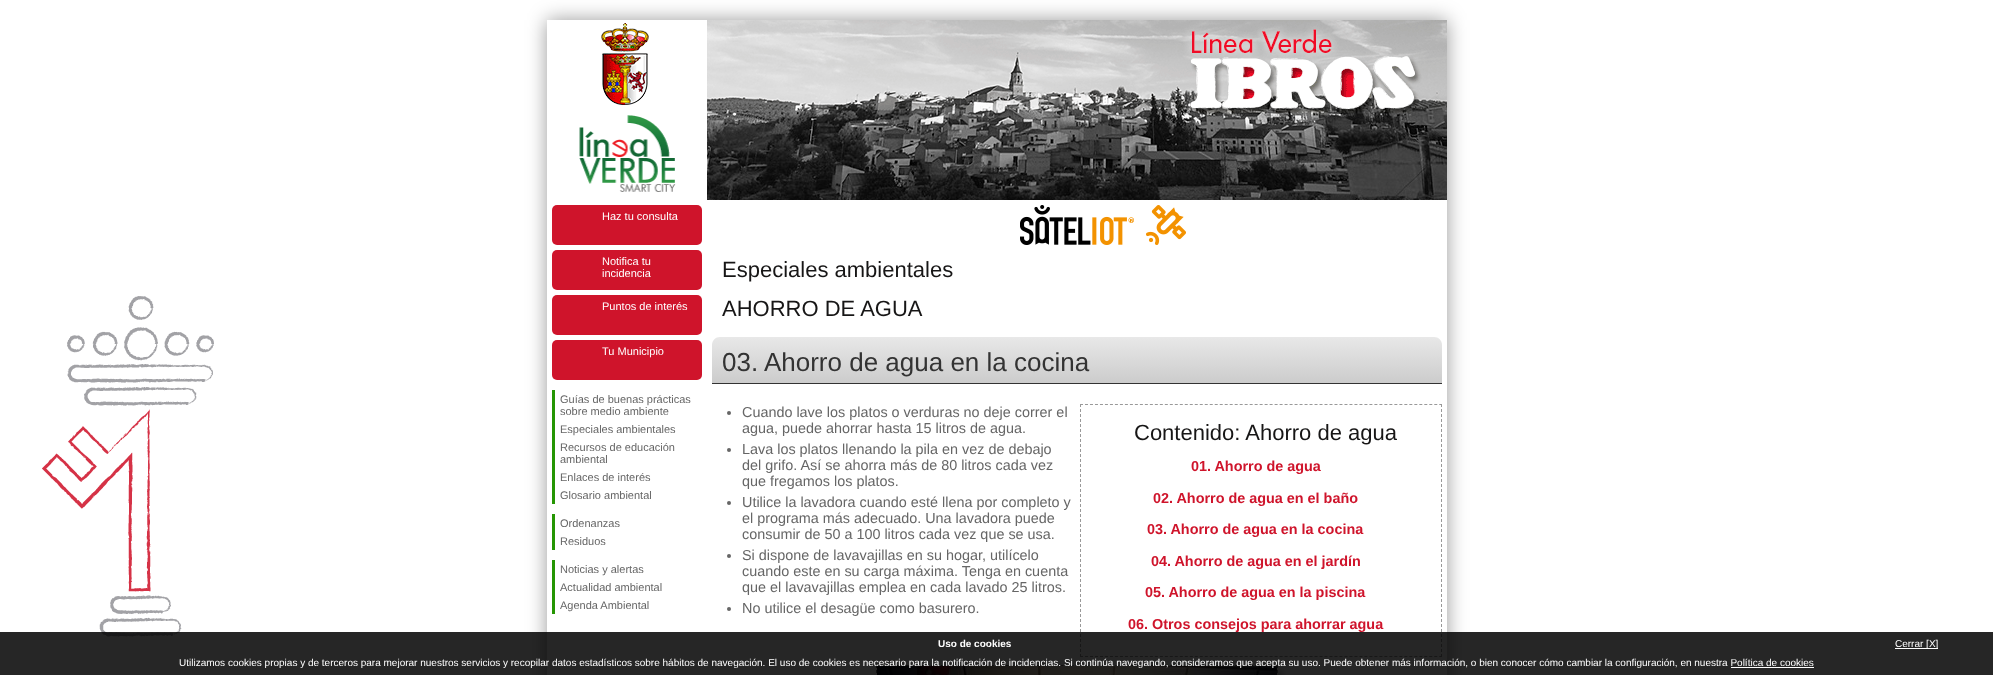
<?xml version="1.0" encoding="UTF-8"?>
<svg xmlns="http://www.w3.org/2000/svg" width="1993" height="675">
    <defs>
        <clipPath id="clip1"><path d="M 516 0 H 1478 V 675 H 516 Z M 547 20 H 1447 V 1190 H 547 Z" clip-rule="evenodd"/></clipPath>
        <filter id="blur1" x="-50%" y="-200%" width="200%" height="500%"><feGaussianBlur stdDeviation="10"/></filter>
        <linearGradient id="g1" gradientUnits="userSpaceOnUse" x1="1077" y1="337" x2="1077" y2="383"><stop offset="0" stop-color="#E8E8E8"/><stop offset="1" stop-color="#CCCCCC"/></linearGradient>
        <filter id="blur2" x="-50%" y="-200%" width="200%" height="500%"><feGaussianBlur stdDeviation="2.5"/></filter>
    </defs>
    <rect width="100%" height="100%" fill="#FFFFFF"/>
    <image x="42" y="296" width="172" height="341" href="img_01.png"/>
    <g clip-path="url(#clip1)">
        <rect x="547" y="20" width="900" height="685" fill="#000000" fill-opacity="0.4" filter="url(#blur1)"/>
    </g>
    <image x="601" y="20" width="846" height="90" href="img_02.png"/>
    <image x="579" y="115" width="97" height="77" href="img_03.png"/>
    <image x="707" y="110" width="740" height="90" href="img_04.png"/>
    <image x="1020" y="205" width="166" height="40" href="img_05.png"/>
    <rect x="552" y="205" width="150" height="40" rx="5" fill="#CF142B"/>
    <text x="602" y="220" font-family="Liberation Sans" font-size="11" fill="#FFFFFF">Haz tu consulta</text>
    <rect x="552" y="250" width="150" height="40" rx="5" fill="#CF142B"/>
    <text font-family="Liberation Sans" font-size="11" fill="#FFFFFF">
        <tspan x="602" y="265">Notifica tu</tspan>
        <tspan x="602" y="277">incidencia</tspan>
    </text>
    <rect x="552" y="295" width="150" height="40" rx="5" fill="#CF142B"/>
    <text x="602" y="310" font-family="Liberation Sans" font-size="11" fill="#FFFFFF">Puntos de interés</text>
    <rect x="552" y="340" width="150" height="40" rx="5" fill="#CF142B"/>
    <text x="602" y="355" font-family="Liberation Sans" font-size="11" fill="#FFFFFF">Tu Municipio</text>
    <rect x="552" y="390" width="3" height="114" fill="#259603"/>
    <text font-family="Liberation Sans" font-size="11" fill="#666666">
        <tspan x="560" y="403">Guías de buenas prácticas</tspan>
        <tspan x="560" y="415">sobre medio ambiente</tspan>
        <tspan x="560" y="433">Especiales ambientales</tspan>
        <tspan x="560" y="451">Recursos de educación</tspan>
        <tspan x="560" y="463">ambiental</tspan>
        <tspan x="560" y="481">Enlaces de interés</tspan>
        <tspan x="560" y="499">Glosario ambiental</tspan>
    </text>
    <rect x="552" y="514" width="3" height="36" fill="#259603"/>
    <text font-family="Liberation Sans" font-size="11" fill="#666666">
        <tspan x="560" y="527">Ordenanzas</tspan>
        <tspan x="560" y="545">Residuos</tspan>
    </text>
    <rect x="552" y="560" width="3" height="54" fill="#259603"/>
    <text font-family="Liberation Sans" font-size="11" fill="#666666">
        <tspan x="560" y="573">Noticias y alertas</tspan>
        <tspan x="560" y="591">Actualidad ambiental</tspan>
        <tspan x="560" y="609">Agenda Ambiental</tspan>
    </text>
    <text font-family="Liberation Sans" font-size="22" fill="#171616">
        <tspan x="722" y="277">Especiales ambientales</tspan>
        <tspan x="722" y="316">AHORRO DE AGUA</tspan>
    </text>
    <path d="M 720 337 H 1434 C 1438.5 337 1442 340.5 1442 345 V 383 H 712 V 345 C 712 340.5 715.5 337 720 337 Z" fill="url(#g1)"/>
    <rect x="712" y="383" width="730" height="1" fill="#333333"/>
    <text x="722" y="371" font-family="Liberation Sans" font-size="26" fill="#333333">03. Ahorro de agua en la cocina</text>
    <circle cx="729" cy="413" r="2" fill="#666666"/>
    <text font-family="Liberation Sans" font-size="14.4" fill="#666666">
        <tspan x="742" y="417">Cuando lave los platos o verduras no deje correr el</tspan>
        <tspan x="742" y="433">agua, puede ahorrar hasta 15 litros de agua.</tspan>
    </text>
    <circle cx="729" cy="450" r="2" fill="#666666"/>
    <text font-family="Liberation Sans" font-size="14.4" fill="#666666">
        <tspan x="742" y="454">Lava los platos llenando la pila en vez de debajo</tspan>
        <tspan x="742" y="470">del grifo. Así se ahorra más de 80 litros cada vez</tspan>
        <tspan x="742" y="486">que fregamos los platos.</tspan>
    </text>
    <circle cx="729" cy="503" r="2" fill="#666666"/>
    <text font-family="Liberation Sans" font-size="14.4" fill="#666666">
        <tspan x="742" y="507">Utilice la lavadora cuando esté llena por completo y</tspan>
        <tspan x="742" y="523">el programa más adecuado. Una lavadora puede</tspan>
        <tspan x="742" y="539">consumir de 50 a 100 litros cada vez que se usa.</tspan>
    </text>
    <circle cx="729" cy="556" r="2" fill="#666666"/>
    <text font-family="Liberation Sans" font-size="14.4" fill="#666666">
        <tspan x="742" y="560">Si dispone de lavavajillas en su hogar, utilícelo</tspan>
        <tspan x="742" y="576">cuando este en su carga máxima. Tenga en cuenta</tspan>
        <tspan x="742" y="592">que el lavavajillas emplea en cada lavado 25 litros.</tspan>
    </text>
    <circle cx="729" cy="609" r="2" fill="#666666"/>
    <text x="742" y="613" font-family="Liberation Sans" font-size="14.4" fill="#666666">No utilice el desagüe como basurero.</text>
    <path d="M 1080 404.5 H 1442" fill="none" stroke="#999999" stroke-dasharray="3 1.99"/>
    <path d="M 1441.5 404 V 657" fill="none" stroke="#999999" stroke-dasharray="3 2"/>
    <path d="M 1080 656.5 H 1442" fill="none" stroke="#999999" stroke-dasharray="3 1.99"/>
    <path d="M 1080.5 404 V 657" fill="none" stroke="#999999" stroke-dasharray="3 2"/>
    <text x="1134" y="440" font-family="Liberation Sans" font-size="22" fill="#171616">Contenido: Ahorro de agua</text>
    <text x="1191" y="471" font-family="Liberation Sans" font-size="14.4" font-weight="700" fill="#CF142B">01. Ahorro de agua</text>
    <text x="1153" y="503" font-family="Liberation Sans" font-size="14.4" font-weight="700" fill="#CF142B">02. Ahorro de agua en el baño</text>
    <text x="1147" y="534" font-family="Liberation Sans" font-size="14.4" font-weight="700" fill="#CF142B">03. Ahorro de agua en la cocina</text>
    <text x="1151" y="566" font-family="Liberation Sans" font-size="14.4" font-weight="700" fill="#CF142B">04. Ahorro de agua en el jardín</text>
    <text x="1145" y="597" font-family="Liberation Sans" font-size="14.4" font-weight="700" fill="#CF142B">05. Ahorro de agua en la piscina</text>
    <text x="1128" y="629" font-family="Liberation Sans" font-size="14.4" font-weight="700" fill="#CF142B">06. Otros consejos para ahorrar agua</text>
    <rect x="881" y="670" width="402" height="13" fill="#CCCCCC" filter="url(#blur2)"/>
    <path d="M 876 665.5 H 1278" fill="none" stroke="#666666" stroke-dasharray="3 1.99"/>
    <path d="M 876.5 665 V 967" fill="none" stroke="#666666" stroke-dasharray="3 1.98"/>
    <image x="877" y="666" width="400" height="9" href="img_06.png"/>
    <path d="M 1277.5 665 V 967" fill="none" stroke="#666666" stroke-dasharray="3 1.98"/>
    <rect x="0" y="632" width="1993" height="43" fill="#000000" fill-opacity="0.85"/>
    <text x="938" y="647" font-family="Liberation Sans" font-size="10" font-weight="700" fill="#FFFFFF">Uso de cookies</text>
    <rect x="1895" y="648" width="43" height="1" fill="#FFFFFF"/>
    <text x="1895" y="647" font-family="Liberation Sans" font-size="10" fill="#FFFFFF">Cerrar [X]</text>
    <text x="179" y="666" font-family="Liberation Sans" font-size="10" fill="#FFFFFF">Utilizamos cookies propias y de terceros para mejorar nuestros servicios y recopilar datos estadísticos sobre hábitos de navegación. El uso de cookies es necesario para la notificación de incidencias. Si continúa navegando, consideramos que acepta su uso. Puede obtener más información, o bien conocer cómo cambiar la configuración, en nuestra Política de cookies</text>
    <rect x="1731" y="667" width="83" height="1" fill="#FFFFFF"/>
</svg>
